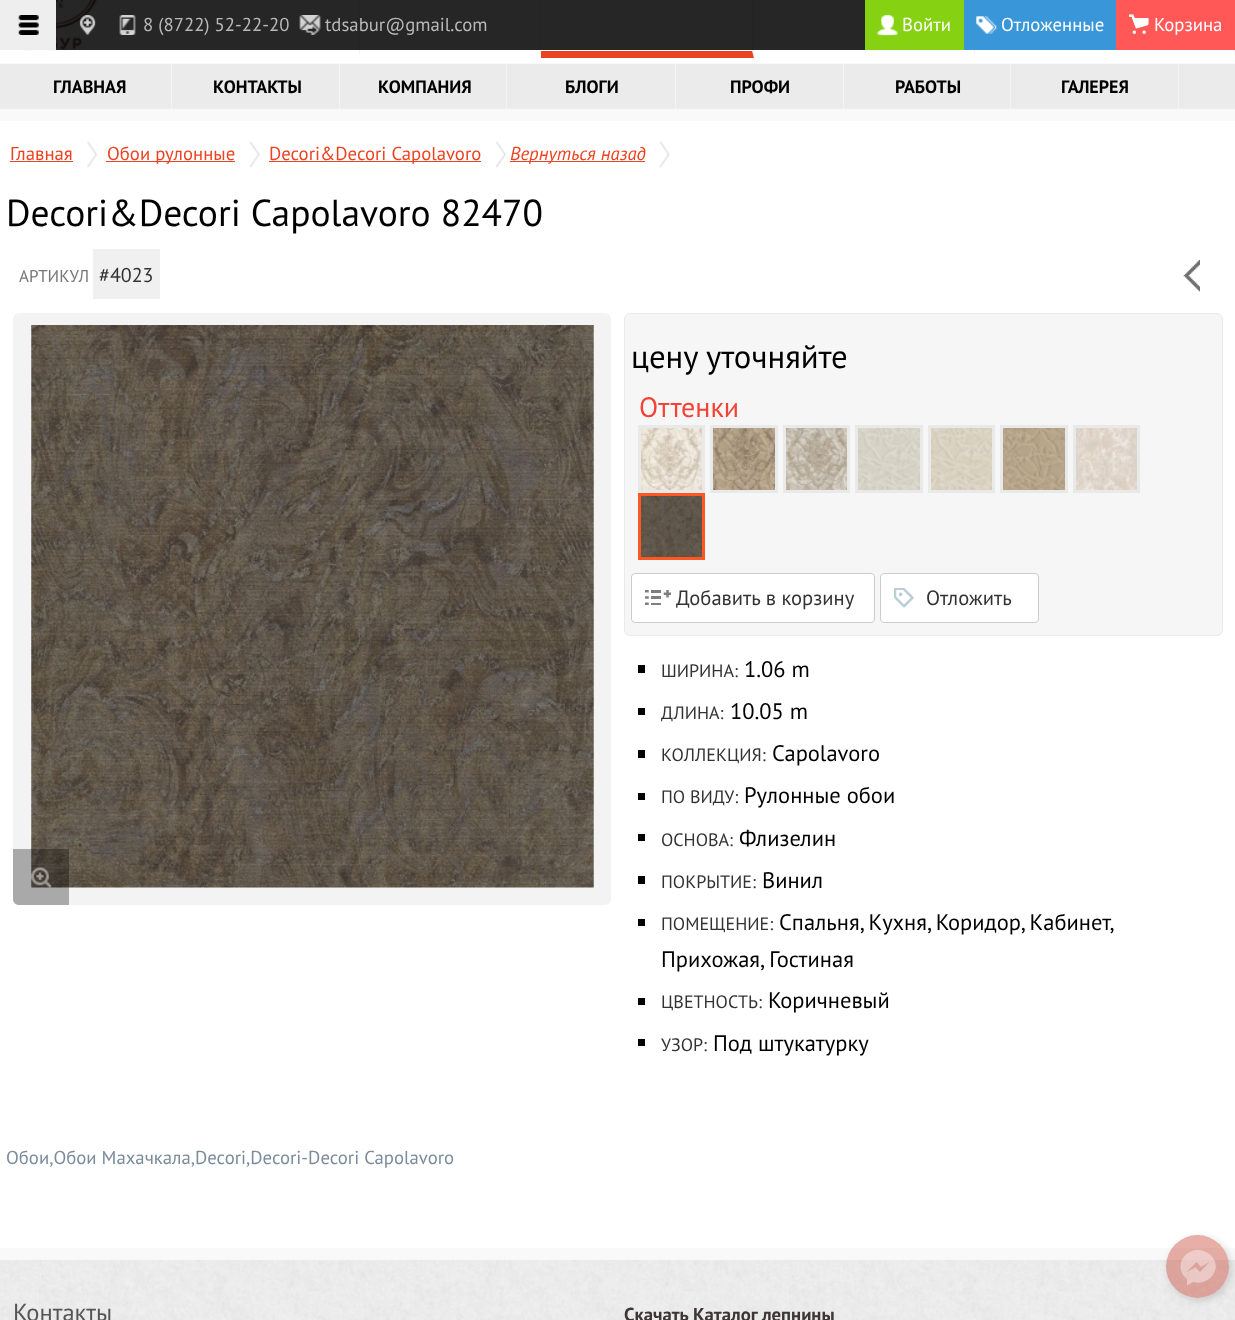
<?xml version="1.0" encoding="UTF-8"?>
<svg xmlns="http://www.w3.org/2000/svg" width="1235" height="1320">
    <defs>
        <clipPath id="clip1"><path d="M 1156 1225 H 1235 V 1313 H 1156 Z M 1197.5 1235 C 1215 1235 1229 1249 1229 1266.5 C 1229 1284 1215 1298 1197.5 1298 C 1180 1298 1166 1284 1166 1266.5 C 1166 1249 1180 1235 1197.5 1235 Z" clip-rule="evenodd"/></clipPath>
        <filter id="blur1" x="-50%" y="-200%" width="200%" height="500%"><feGaussianBlur stdDeviation="4"/></filter>
    </defs>
    <rect width="100%" height="100%" fill="#F9F9F9"/>
    <rect x="0" y="0" width="1235" height="63" fill="#FFFFFF"/>
    <image x="6" y="0" width="92" height="51" href="img_01.png"/>
    <path d="M 360 -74 V 58 L 359 51 V -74 Z" fill="#F0F0F0"/>
    <path d="M 360 58 H 125 V 51 H 359 Z" fill="#FFFFFF"/>
    <path d="M 541 -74 V 58 L 540 51 V -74 Z" fill="#F0F0F0"/>
    <path d="M 541 58 H 360 V 51 H 540 Z" fill="#FFFFFF"/>
    <path d="M 754 -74 V 58 L 752 51 V -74 Z" fill="#F0F0F0"/>
    <path d="M 754 58 H 541 V 51 H 752 Z" fill="#EB4322"/>
    <path d="M 975 -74 V 58 L 974 51 V -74 Z" fill="#F0F0F0"/>
    <path d="M 975 58 H 754 V 51 H 974 Z" fill="#FFFFFF"/>
    <path d="M 1235 -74 V 58 L 1234 51 V -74 Z" fill="#F0F0F0"/>
    <path d="M 1235 58 H 975 V 51 H 1234 Z" fill="#FFFFFF"/>
    <rect x="56" y="0" width="809" height="50" fill="#000000" fill-opacity="0.85"/>
    <rect x="0" y="0" width="56" height="50" fill="#EEEEEE"/>
    <image x="18" y="15" width="21" height="20" href="img_02.png"/>
    <image x="79" y="15" width="17" height="20" href="img_03.png"/>
    <image x="119" y="15" width="17" height="20" href="img_04.png"/>
    <text x="143" y="31" font-family="PT Sans" font-size="18.75" fill="#B9B9B9">8 (8722) 52-22-20</text>
    <image x="299" y="15" width="22" height="20" href="img_05.png"/>
    <text x="325" y="31" font-family="PT Sans" font-size="18.75" fill="#B9B9B9">tdsabur@gmail.com</text>
    <rect x="865" y="0" width="99" height="50" fill="#85D112"/>
    <image x="877" y="14" width="21" height="22" href="img_06.png"/>
    <text x="902" y="31" font-family="PT Sans" font-size="18.75" fill="#FFFFFF">Войти</text>
    <rect x="964" y="0" width="152" height="50" fill="#3996D8"/>
    <image x="976" y="16" width="21" height="18" href="img_07.png"/>
    <text x="1001" y="31" font-family="PT Sans" font-size="18.75" fill="#FFFFFF">Отложенные</text>
    <rect x="1116" y="0" width="119" height="50" fill="#FF5857"/>
    <image x="1129" y="14" width="20" height="20" href="img_08.png"/>
    <text x="1154" y="31" font-family="PT Sans" font-size="18.75" fill="#FFFFFF">Корзина</text>
    <rect x="0" y="64" width="1235" height="45" fill="#EBEBEB"/>
    <rect x="171" y="64" width="1" height="45" fill="#F4F4F4"/>
    <text x="53" y="93" font-family="PT Sans" font-size="18" font-weight="700" fill="#000000">ГЛАВНАЯ</text>
    <rect x="339" y="64" width="1" height="45" fill="#F4F4F4"/>
    <text x="213" y="93" font-family="PT Sans" font-size="18" font-weight="700" fill="#000000">КОНТАКТЫ</text>
    <rect x="506" y="64" width="1" height="45" fill="#F4F4F4"/>
    <text x="378" y="93" font-family="PT Sans" font-size="18" font-weight="700" fill="#000000">КОМПАНИЯ</text>
    <rect x="675" y="64" width="1" height="45" fill="#F4F4F4"/>
    <text x="565" y="93" font-family="PT Sans" font-size="18" font-weight="700" fill="#000000">БЛОГИ</text>
    <rect x="843" y="64" width="1" height="45" fill="#F4F4F4"/>
    <text x="730" y="93" font-family="PT Sans" font-size="18" font-weight="700" fill="#000000">ПРОФИ</text>
    <rect x="1010" y="64" width="1" height="45" fill="#F4F4F4"/>
    <text x="895" y="93" font-family="PT Sans" font-size="18" font-weight="700" fill="#000000">РАБОТЫ</text>
    <rect x="1178" y="64" width="1" height="45" fill="#F4F4F4"/>
    <text x="1061" y="93" font-family="PT Sans" font-size="18" font-weight="700" fill="#000000">ГАЛЕРЕЯ</text>
    <rect x="0" y="121" width="1235" height="1127" fill="#FFFFFF"/>
    <text x="10" y="160" font-family="PT Sans" font-size="18.75" fill="#EB4322">Главная</text>
    <rect x="10" y="161" width="63" height="1" fill="#EB4322"/>
    <image x="87" y="141" width="11" height="27" href="img_09.png"/>
    <rect x="106" y="161" width="129" height="1" fill="#EB4322"/>
    <text x="107" y="160" font-family="PT Sans" font-size="18.75" fill="#EB4322">Обои рулонные</text>
    <image x="249" y="141" width="11" height="27" href="img_10.png"/>
    <rect x="269" y="161" width="212" height="1" fill="#EB4322"/>
    <text x="269" y="160" font-family="PT Sans" font-size="18.75" fill="#EB4322">Decori&amp;Decori Capolavoro</text>
    <image x="495" y="141" width="11" height="27" href="img_11.png"/>
    <rect x="510" y="161" width="135" height="1" fill="#EB4322"/>
    <text x="510" y="160" font-family="PT Sans" font-size="18.75" font-style="italic" fill="#EB4322">Вернуться назад</text>
    <image x="659" y="141" width="11" height="27" href="img_10.png"/>
    <text x="6" y="226" font-family="PT Sans" font-size="37.5" fill="#000000">Decori&amp;Decori Capolavoro 82470</text>
    <text x="19" y="282" font-family="PT Sans" font-size="17" fill="#777777">АРТИКУЛ</text>
    <rect x="93" y="249" width="67" height="50" fill="#F0F0F0"/>
    <text x="99" y="282" font-family="PT Sans" font-size="20" fill="#333333">#4023</text>
    <image x="1183" y="260" width="17" height="32" href="img_12.png"/>
    <rect x="13" y="313" width="598" height="592" rx="6" fill="#F3F3F3"/>
    <image x="31" y="325" width="563" height="563" href="img_13.png"/>
    <path d="M 13 849 H 69 V 905 H 19 C 15.5 905 13 902.5 13 899 Z" fill="#000000" fill-opacity="0.3"/>
    <image x="31" y="867" width="21" height="21" href="img_14.png"/>
    <rect x="624.5" y="313.5" width="598" height="322" rx="5.5" fill="#F6F6F6" stroke="#EAEAEA"/>
    <text x="631" y="368" font-family="PT Sans" font-size="32.75" fill="#000000">цену уточняйте</text>
    <text x="639" y="417" font-family="PT Sans" font-size="28" fill="#F44336">Оттенки</text>
    <image x="641" y="428" width="61" height="62" href="img_15.png"/>
    <rect x="639.5" y="426.5" width="64" height="65" fill="none" stroke="#E9E9E9" stroke-width="3"/>
    <image x="713" y="428" width="62" height="62" href="img_16.png"/>
    <rect x="711.5" y="426.5" width="65" height="65" fill="none" stroke="#E9E9E9" stroke-width="3"/>
    <image x="786" y="428" width="61" height="62" href="img_17.png"/>
    <rect x="784.5" y="426.5" width="64" height="65" fill="none" stroke="#E9E9E9" stroke-width="3"/>
    <image x="858" y="428" width="62" height="62" href="img_18.png"/>
    <rect x="856.5" y="426.5" width="65" height="65" fill="none" stroke="#E9E9E9" stroke-width="3"/>
    <image x="931" y="428" width="61" height="62" href="img_19.png"/>
    <rect x="929.5" y="426.5" width="64" height="65" fill="none" stroke="#E9E9E9" stroke-width="3"/>
    <image x="1003" y="428" width="62" height="62" href="img_20.png"/>
    <rect x="1001.5" y="426.5" width="65" height="65" fill="none" stroke="#E9E9E9" stroke-width="3"/>
    <image x="1076" y="428" width="61" height="62" href="img_21.png"/>
    <rect x="1074.5" y="426.5" width="64" height="65" fill="none" stroke="#E9E9E9" stroke-width="3"/>
    <image x="641" y="496" width="61" height="61" href="img_22.png"/>
    <rect x="639.5" y="494.5" width="64" height="64" fill="none" stroke="#FF5722" stroke-width="3"/>
    <rect x="631" y="573" width="244" height="50" rx="4" fill="#FFFFFF"/>
    <image x="645" y="590" width="26" height="15" href="img_23.png"/>
    <rect x="631.5" y="573.5" width="243" height="49" rx="3.5" fill="none" stroke="#CCCCCC"/>
    <text x="676" y="605" font-family="PT Sans" font-size="20.6" fill="#333333">Добавить в корзину</text>
    <rect x="880" y="573" width="159" height="50" rx="4" fill="#FFFFFF"/>
    <image x="894" y="588" width="20" height="20" href="img_24.png"/>
    <rect x="880.5" y="573.5" width="158" height="49" rx="3.5" fill="none" stroke="#CCCCCC"/>
    <text x="926" y="605" font-family="PT Sans" font-size="20.6" fill="#333333">Отложить</text>
    <rect x="638" y="665" width="7" height="8" fill="#000000"/>
    <text x="661" y="677" font-family="PT Sans" font-size="18" fill="#333333">ШИРИНА:</text>
    <text x="744" y="677" font-family="PT Sans" font-size="22.5" fill="#000000">1.06 m</text>
    <rect x="638" y="708" width="7" height="7" fill="#000000"/>
    <text x="661" y="719" font-family="PT Sans" font-size="18" fill="#333333">ДЛИНА:</text>
    <text x="730" y="719" font-family="PT Sans" font-size="22.5" fill="#000000">10.05 m</text>
    <rect x="638" y="750" width="7" height="8" fill="#000000"/>
    <text x="661" y="761" font-family="PT Sans" font-size="18" fill="#333333">КОЛЛЕКЦИЯ:</text>
    <text x="772" y="761" font-family="PT Sans" font-size="22.5" fill="#000000">Capolavoro</text>
    <rect x="638" y="793" width="7" height="7" fill="#000000"/>
    <text x="661" y="803" font-family="PT Sans" font-size="18" fill="#333333">ПО ВИДУ:</text>
    <text x="744" y="803" font-family="PT Sans" font-size="22.5" fill="#000000">Рулонные обои</text>
    <rect x="638" y="834" width="7" height="7" fill="#000000"/>
    <text x="661" y="846" font-family="PT Sans" font-size="18" fill="#333333">ОСНОВА:</text>
    <text x="739" y="846" font-family="PT Sans" font-size="22.5" fill="#000000">Флизелин</text>
    <rect x="638" y="876" width="7" height="8" fill="#000000"/>
    <text x="661" y="888" font-family="PT Sans" font-size="18" fill="#333333">ПОКРЫТИЕ:</text>
    <text x="762" y="888" font-family="PT Sans" font-size="22.5" fill="#000000">Винил</text>
    <rect x="638" y="919" width="7" height="7" fill="#000000"/>
    <text x="661" y="930" font-family="PT Sans" font-size="18" fill="#333333">ПОМЕЩЕНИЕ:</text>
    <text x="779" y="930" word-spacing="-0.5" font-family="PT Sans" font-size="22.5" fill="#000000">Спальня, Кухня, Коридор, Кабинет,</text>
    <text x="661" y="967" font-family="PT Sans" font-size="22.5" fill="#000000">Прихожая, Гостиная</text>
    <rect x="638" y="998" width="7" height="7" fill="#000000"/>
    <text x="661" y="1008" font-family="PT Sans" font-size="18" fill="#333333">ЦВЕТНОСТЬ:</text>
    <text x="768" y="1008" font-family="PT Sans" font-size="22.5" fill="#000000">Коричневый</text>
    <rect x="638" y="1039" width="7" height="7" fill="#000000"/>
    <text x="661" y="1051" font-family="PT Sans" font-size="18" fill="#333333">УЗОР:</text>
    <text x="713" y="1051" font-family="PT Sans" font-size="22.5" fill="#000000">Под штукатурку</text>
    <text x="6" y="1164" font-family="PT Sans" font-size="18.75" fill="#7A8B9C">Обои,Обои Махачкала,Decori,Decori-Decori Capolavoro</text>
    <image x="0" y="1260" width="1235" height="60" href="img_25.png"/>
    <text x="13" y="1321" font-family="PT Sans" font-size="24.5" fill="#555555">Контакты</text>
    <text x="624" y="1321" font-family="PT Sans" font-size="18.75" font-weight="700" fill="#3E3636">Скачать Каталог лепнины</text>
    <g clip-path="url(#clip1)">
        <rect x="1169" y="1238" width="62" height="62" rx="31" fill="#000000" fill-opacity="0.16" filter="url(#blur1)"/>
    </g>
    <circle cx="1197.5" cy="1266.5" r="31.5" fill="#C63828" fill-opacity="0.4"/>
    <path d="M 1198 1250 C 1182 1250 1174 1269.5 1187 1279 V 1285.5 L 1193 1282 C 1209.5 1286.5 1224 1267.5 1210.5 1255 C 1207 1252 1202.5 1250 1198 1250 Z M 1200 1272 L 1195.5 1267.5 L 1186.5 1272 L 1196.5 1262 L 1201 1267 L 1209.5 1262 Z" fill="#FFFFFF" fill-opacity="0.4" fill-rule="evenodd"/>
</svg>
